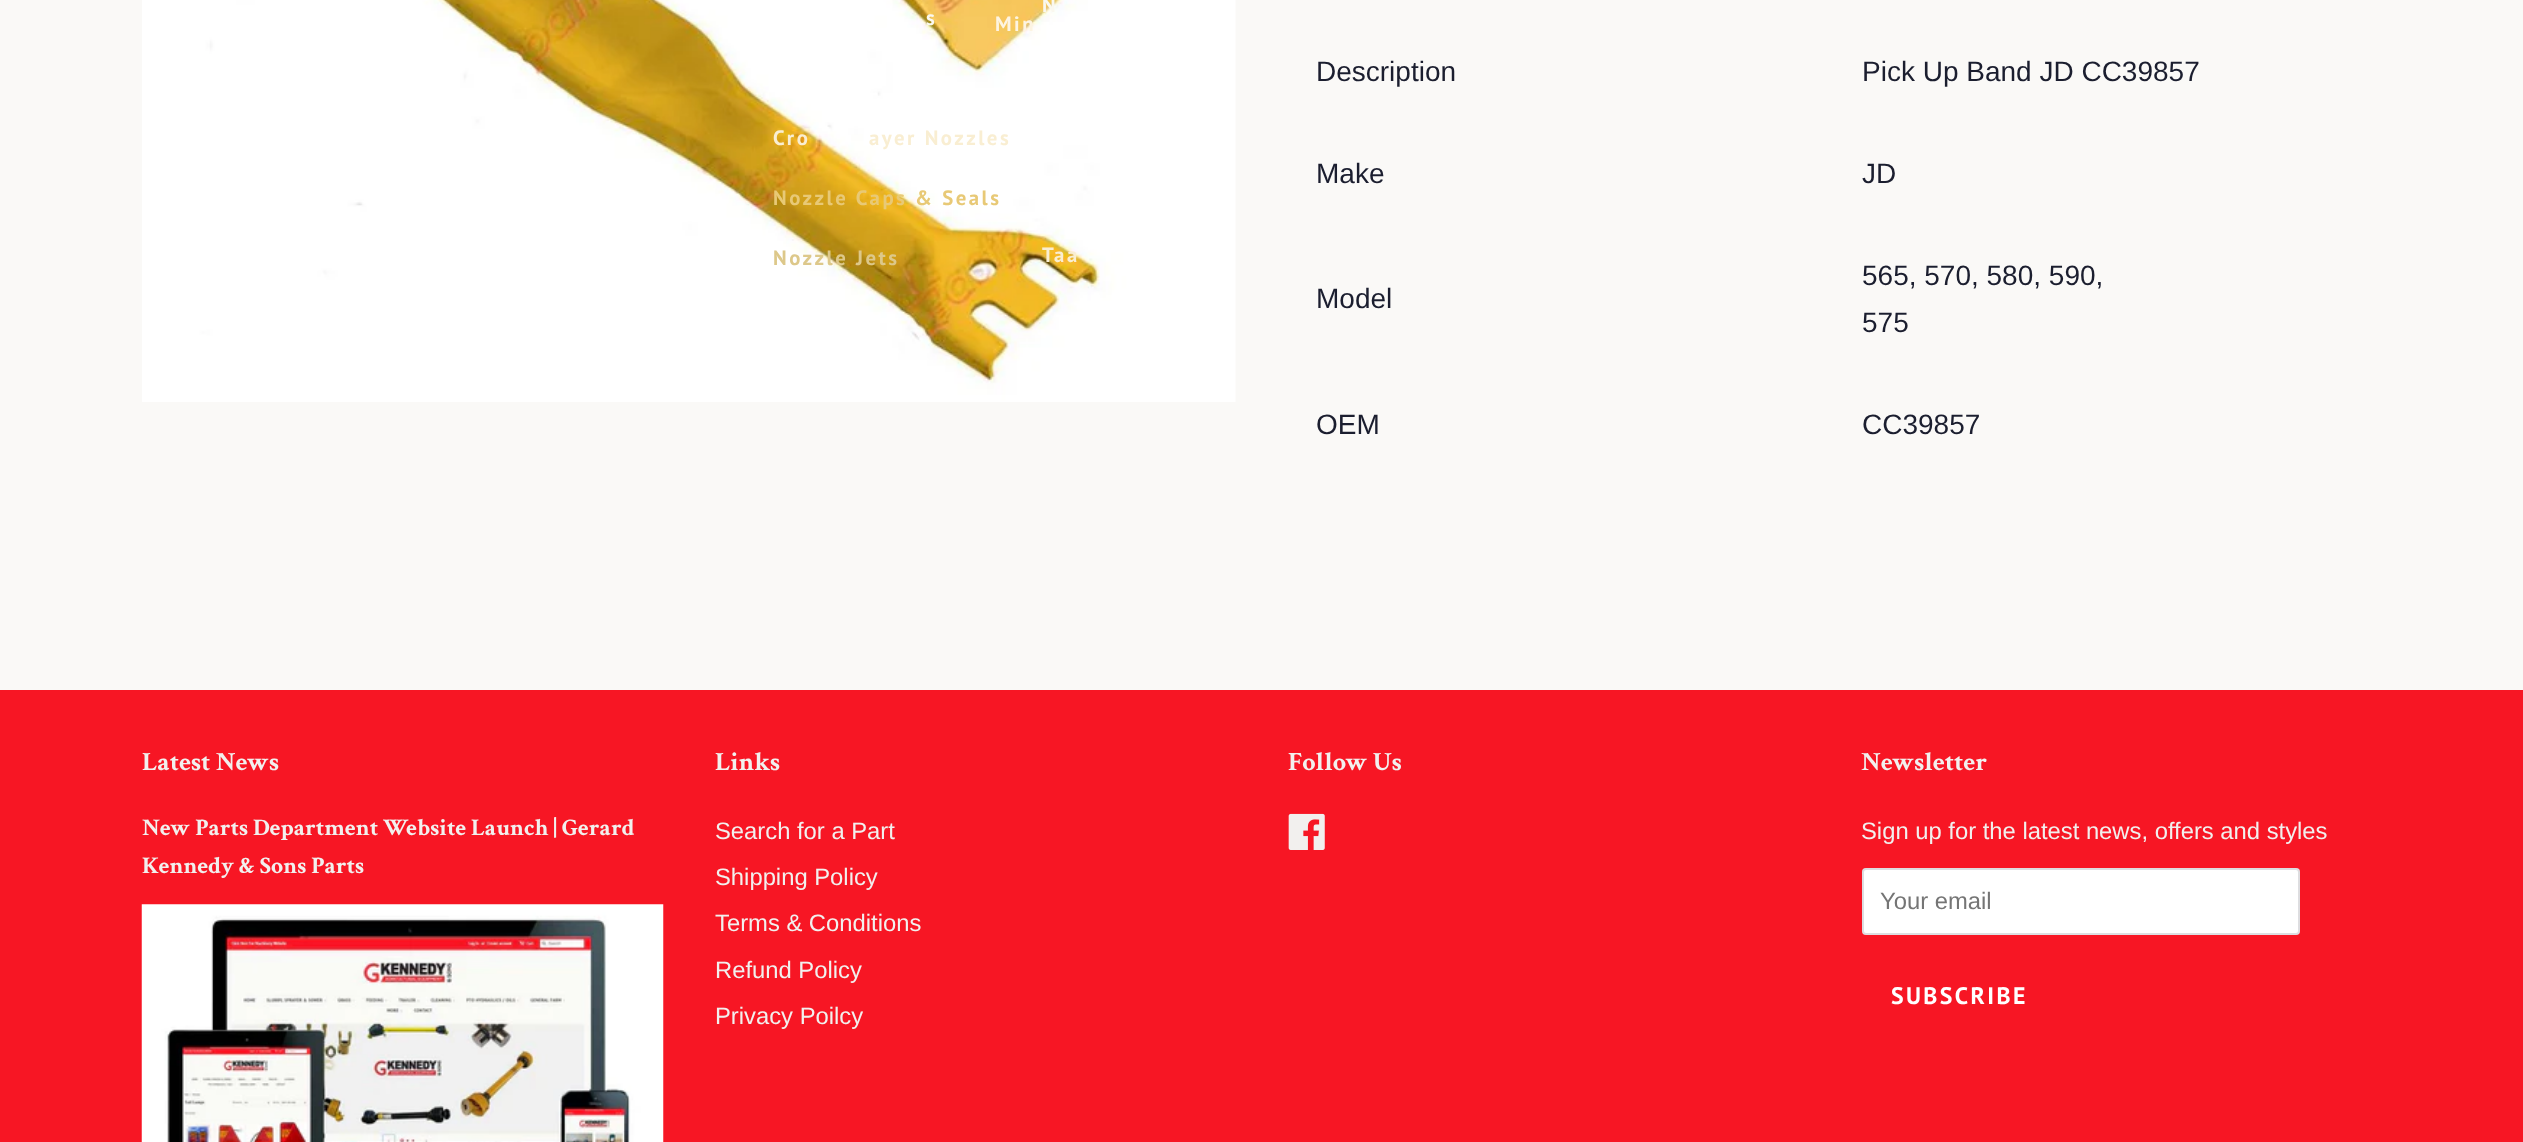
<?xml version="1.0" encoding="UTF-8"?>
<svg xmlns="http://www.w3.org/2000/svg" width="2523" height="1142">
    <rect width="100%" height="100%" fill="#FAF9F7"/>
    <image x="142" y="0" width="1094" height="402" href="img_01.png"/>
    <text x="926" y="25" font-family="PT Sans" font-size="20.75" font-weight="700" letter-spacing="2.5" fill="#FAF8EF">s</text>
    <text x="773" y="145" font-family="PT Sans" font-size="20.75" font-weight="700" letter-spacing="2.5" fill="#F9EED2">Cro</text>
    <text x="869" y="145" font-family="PT Sans" font-size="20.75" font-weight="700" letter-spacing="2.5" fill="#F9EED2">ayer Nozzles</text>
    <text x="773" y="205" font-family="PT Sans" font-size="20.75" font-weight="700" letter-spacing="2.5" fill="#E8C976">Nozzle Caps &amp; Seals</text>
    <text x="773" y="265" font-family="PT Sans" font-size="20.75" font-weight="700" letter-spacing="2.5" fill="#DDC88A">Nozzle Jets</text>
    <text x="995" y="31" font-family="PT Sans" font-size="20.75" font-weight="700" letter-spacing="2.5" fill="#FDF4E2">Min</text>
    <text x="1042" y="12" font-family="PT Sans" font-size="20.75" font-weight="700" letter-spacing="2.5" fill="#FAF8EF">N</text>
    <text x="1042" y="262" font-family="PT Sans" font-size="20.75" font-weight="700" letter-spacing="2.5" fill="#F9EED2">Taa</text>
    <text x="1316" y="81" font-family="Liberation Sans" font-size="28" fill="#1B1E2F">Description</text>
    <text x="1862" y="81" font-family="Liberation Sans" font-size="28" fill="#1B1E2F">Pick Up Band JD CC39857</text>
    <text x="1316" y="183" font-family="Liberation Sans" font-size="28" fill="#1B1E2F">Make</text>
    <text x="1862" y="183" font-family="Liberation Sans" font-size="28" fill="#1B1E2F">JD</text>
    <text x="1316" y="308" font-family="Liberation Sans" font-size="28" fill="#1B1E2F">Model</text>
    <text font-family="Liberation Sans" font-size="28" fill="#1B1E2F">
        <tspan x="1862" y="285">565, 570, 580, 590,</tspan>
        <tspan x="1862" y="332">575</tspan>
    </text>
    <text x="1316" y="434" font-family="Liberation Sans" font-size="28" fill="#1B1E2F">OEM</text>
    <text x="1862" y="434" font-family="Liberation Sans" font-size="28" fill="#1B1E2F">CC39857</text>
    <rect x="0" y="690" width="2523" height="452" fill="#F71624"/>
    <text x="142" y="770" font-family="Crimson Text" font-size="26.25" font-weight="700" fill="#F2F0EE">Latest News</text>
    <text font-family="Crimson Text" font-size="23.8" font-weight="700" fill="#F2F0EE">
        <tspan x="142" y="835">New Parts Department Website Launch | Gerard</tspan>
        <tspan x="142" y="873">Kennedy &amp; Sons Parts</tspan>
    </text>
    <image x="141" y="904" width="523" height="238" href="img_02.png"/>
    <text x="715" y="770" font-family="Crimson Text" font-size="26.25" font-weight="700" fill="#F2F0EE">Links</text>
    <text font-family="Liberation Sans" font-size="23.8" fill="#F2F0EE">
        <tspan x="715" y="839">Search for a Part</tspan>
        <tspan x="715" y="885">Shipping Policy</tspan>
        <tspan x="715" y="931">Terms &amp; Conditions</tspan>
        <tspan x="715" y="978">Refund Policy</tspan>
        <tspan x="715" y="1024">Privacy Poilcy</tspan>
    </text>
    <text x="1288" y="770" font-family="Crimson Text" font-size="26.25" font-weight="700" fill="#F2F0EE">Follow Us</text>
    <image x="1288" y="813" width="37" height="37" href="img_03.png"/>
    <text x="1861" y="770" font-family="Crimson Text" font-size="26.25" font-weight="700" fill="#F2F0EE">Newsletter</text>
    <text x="1861" y="839" font-family="Liberation Sans" font-size="23.8" fill="#F2F0EE">Sign up for the latest news, offers and styles</text>
    <rect x="1862" y="868" width="438" height="67" rx="4" fill="#FFFFFF"/>
    <rect x="1863" y="869" width="436" height="65" rx="3" fill="none" stroke="#1B1E2F" stroke-opacity="0.15" stroke-width="2"/>
    <text x="1880" y="909" font-family="Liberation Sans" font-size="23.8" fill="#757575">Your email</text>
    <text x="1891" y="1004" font-family="PT Sans" font-size="23.8" font-weight="700" letter-spacing="2.4" fill="#FFFFFF">SUBSCRIBE</text>
</svg>
